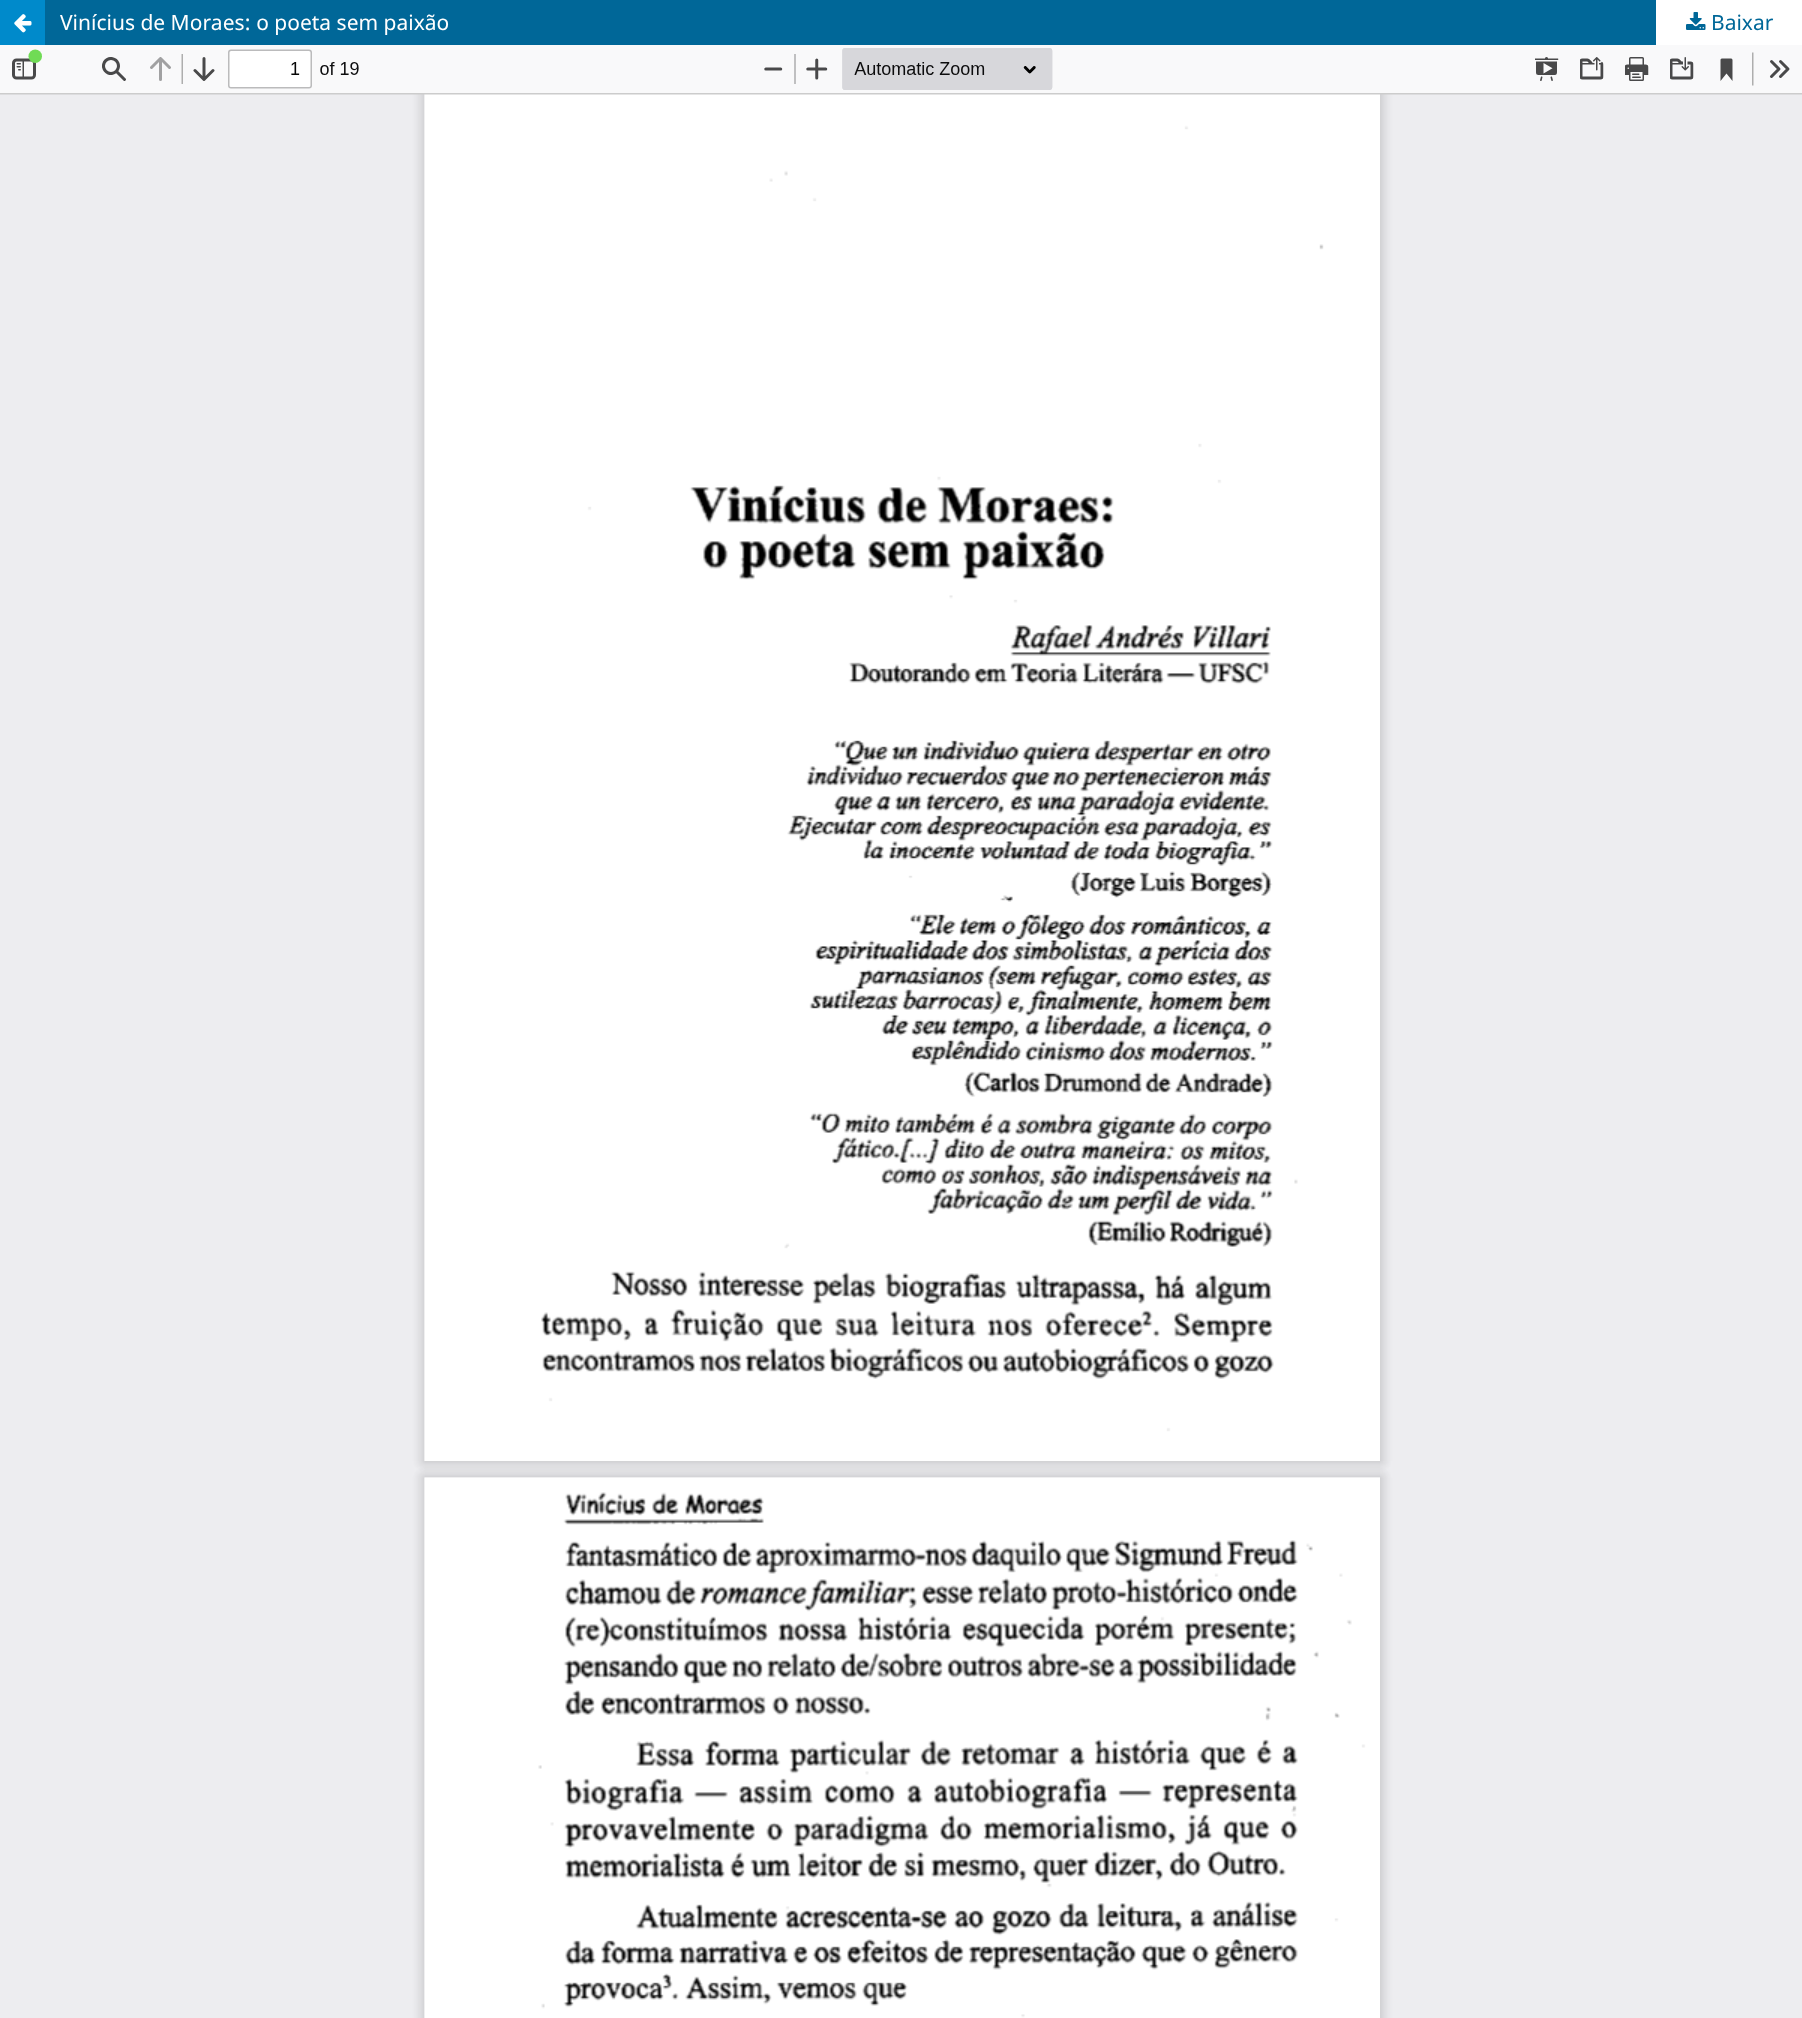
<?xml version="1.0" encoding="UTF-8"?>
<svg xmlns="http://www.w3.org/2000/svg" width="1802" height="2018">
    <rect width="100%" height="100%" fill="#FFFFFF"/>
    <rect x="45" y="0" width="1611" height="45" fill="#006798"/>
    <rect x="0" y="0" width="45" height="45" fill="#008ACB"/>
    <image x="14" y="14" width="18" height="19" href="img_01.png"/>
    <text x="60" y="30" font-family="Noto Sans" font-size="21" fill="#FFFFFF">Vinícius de Moraes: o poeta sem paixão</text>
    <image x="1686" y="12" width="20" height="18" href="img_02.png"/>
    <text x="1711" y="30" font-family="Noto Sans" font-size="21" fill="#006798">Baixar</text>
    <image x="0" y="45" width="1802" height="1973" href="img_03.png"/>
</svg>
